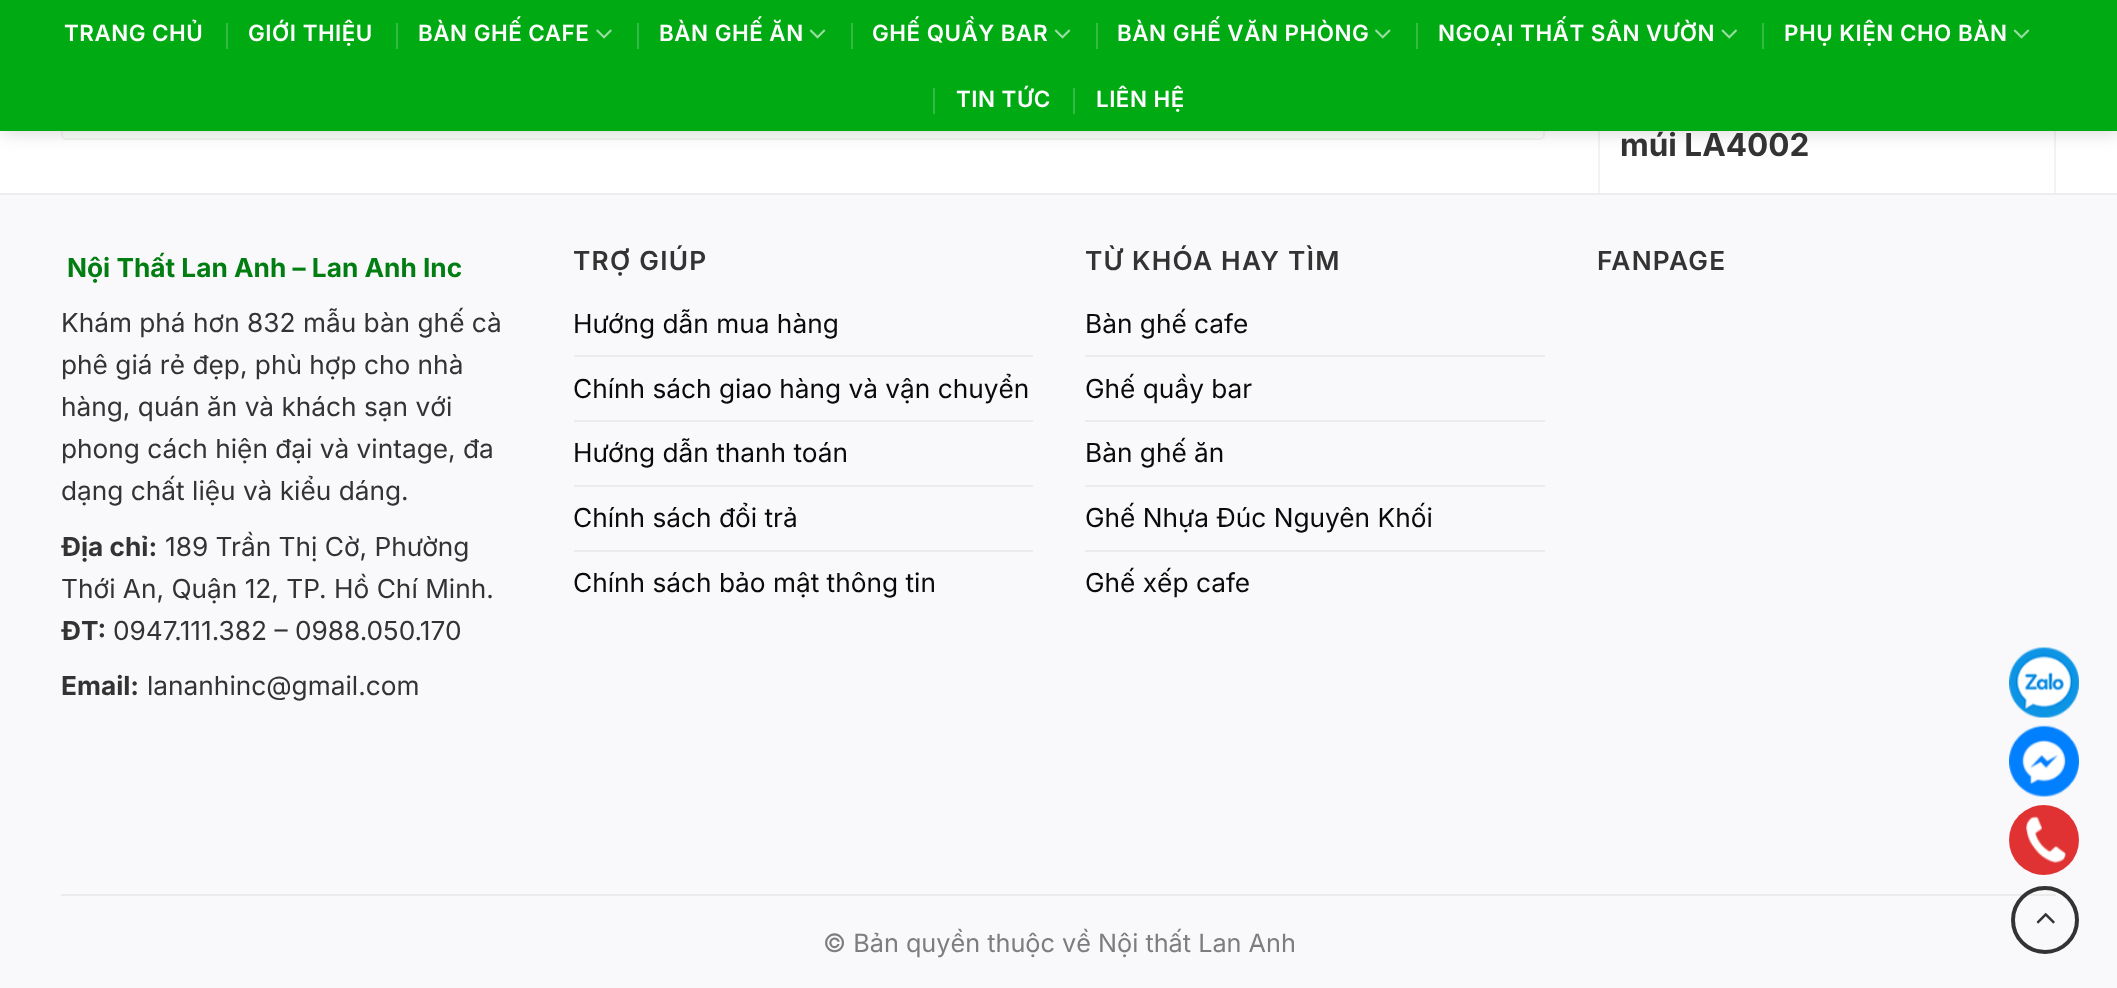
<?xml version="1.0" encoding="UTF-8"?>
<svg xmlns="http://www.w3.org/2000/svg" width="2117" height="988">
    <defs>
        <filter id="blur1" x="-50%" y="-200%" width="200%" height="500%"><feGaussianBlur stdDeviation="9"/></filter>
    </defs>
    <rect width="100%" height="100%" fill="#FFFFFF"/>
    <rect x="62" y="-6" width="1482" height="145" rx="4" fill="#FAFFFA" stroke="#F2F2F2" stroke-width="2"/>
    <rect x="1599" y="75" width="456" height="502" fill="none" stroke="#F2F2F2" stroke-width="2"/>
    <rect x="2" y="2" width="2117" height="131" fill="#000000" fill-opacity="0.15" filter="url(#blur1)"/>
    <rect x="0" y="0" width="2117" height="131" fill="#00AA13"/>
    <text x="64" y="41" font-family="Inter" font-size="22.4" font-weight="600" letter-spacing="0.5" fill="#FFFFFF">TRANG CHỦ</text>
    <rect x="226" y="23" width="2" height="26" fill="#33BB42"/>
    <text x="248" y="41" font-family="Inter" font-size="22.4" font-weight="600" letter-spacing="0.5" fill="#FFFFFF">GIỚI THIỆU</text>
    <rect x="396" y="23" width="2" height="26" fill="#33BB42"/>
    <text x="418" y="41" font-family="Inter" font-size="22.4" font-weight="600" letter-spacing="0.5" fill="#FFFFFF">BÀN GHẾ CAFE</text>
    <image x="596" y="29" width="16" height="10" href="img_01.png"/>
    <rect x="637" y="23" width="2" height="26" fill="#33BB42"/>
    <text x="659" y="41" font-family="Inter" font-size="22.4" font-weight="600" letter-spacing="0.5" fill="#FFFFFF">BÀN GHẾ ĂN</text>
    <image x="809" y="29" width="17" height="10" href="img_02.png"/>
    <rect x="851" y="23" width="2" height="26" fill="#33BB42"/>
    <text x="872" y="41" font-family="Inter" font-size="22.4" font-weight="600" letter-spacing="0.5" fill="#FFFFFF">GHẾ QUẦY BAR</text>
    <image x="1054" y="29" width="17" height="10" href="img_02.png"/>
    <rect x="1096" y="23" width="2" height="26" fill="#33BB42"/>
    <text x="1117" y="41" font-family="Inter" font-size="22.4" font-weight="600" letter-spacing="0.5" fill="#FFFFFF">BÀN GHẾ VĂN PHÒNG</text>
    <image x="1375" y="29" width="16" height="10" href="img_03.png"/>
    <rect x="1416" y="23" width="2" height="26" fill="#33BB42"/>
    <text x="1438" y="41" font-family="Inter" font-size="22.4" font-weight="600" letter-spacing="0.5" fill="#FFFFFF">NGOẠI THẤT SÂN VƯỜN</text>
    <image x="1721" y="29" width="16" height="10" href="img_04.png"/>
    <rect x="1762" y="23" width="2" height="26" fill="#33BB42"/>
    <text x="1784" y="41" font-family="Inter" font-size="22.4" font-weight="600" letter-spacing="0.5" fill="#FFFFFF">PHỤ KIỆN CHO BÀN</text>
    <image x="2013" y="29" width="17" height="10" href="img_02.png"/>
    <rect x="933" y="88" width="2" height="26" fill="#33BB42"/>
    <text x="956" y="107" font-family="Inter" font-size="22.4" font-weight="600" letter-spacing="0.5" fill="#FFFFFF">TIN TỨC</text>
    <rect x="1073" y="88" width="2" height="26" fill="#33BB42"/>
    <text x="1096" y="107" font-family="Inter" font-size="22.4" font-weight="600" letter-spacing="0.5" fill="#FFFFFF">LIÊN HỆ</text>
    <text x="1620" y="156" font-family="Inter" font-size="31.5" font-weight="700" fill="#333333">múi LA4002</text>
    <rect x="0" y="195" width="2117" height="793" fill="#F9F9FB"/>
    <rect x="0" y="193" width="2117" height="2" fill="#EDEDEE"/>
    <text x="67" y="277" font-family="Inter" font-size="26.25" font-weight="700" fill="#017D12">Nội Thất Lan Anh – Lan Anh Inc</text>
    <text font-family="Inter" font-size="26.25" fill="#333333">
        <tspan x="61" y="332">Khám phá hơn 832 mẫu bàn ghế cà</tspan>
        <tspan x="61" y="374">phê giá rẻ đẹp, phù hợp cho nhà</tspan>
        <tspan x="61" y="416">hàng, quán ăn và khách sạn với</tspan>
        <tspan x="61" y="458">phong cách hiện đại và vintage, đa</tspan>
        <tspan x="61" y="500">dạng chất liệu và kiểu dáng.</tspan>
    </text>
    <text x="61" y="556" font-family="Inter" font-size="26.25" font-weight="700" fill="#333333">Địa chỉ:</text>
    <text x="165" y="556" font-family="Inter" font-size="26.25" fill="#333333">189 Trần Thị Cờ, Phường</text>
    <text x="61" y="598" font-family="Inter" font-size="26.25" fill="#333333">Thới An, Quận 12, TP. Hồ Chí Minh.</text>
    <text x="61" y="640" font-family="Inter" font-size="26.25" font-weight="700" fill="#333333">ĐT:</text>
    <text x="113" y="640" font-family="Inter" font-size="26.25" fill="#333333">0947.111.382 – 0988.050.170</text>
    <text x="61" y="695" font-family="Inter" font-size="26.25" font-weight="700" fill="#333333">Email:</text>
    <text x="147" y="695" font-family="Inter" font-size="26.25" fill="#333333">lananhinc@gmail.com</text>
    <text x="573" y="270" font-family="Inter" font-size="26.25" font-weight="600" letter-spacing="1.25" fill="#333333">TRỢ GIÚP</text>
    <text x="573" y="333" font-family="Inter" font-size="26.25" fill="#0A0A0A">Hướng dẫn mua hàng</text>
    <rect x="574" y="355" width="459" height="2" fill="#ECECEC"/>
    <text x="573" y="398" font-family="Inter" font-size="26.25" fill="#0A0A0A">Chính sách giao hàng và vận chuyển</text>
    <rect x="574" y="420" width="459" height="2" fill="#ECECEC"/>
    <text x="573" y="462" font-family="Inter" font-size="26.25" fill="#0A0A0A">Hướng dẫn thanh toán</text>
    <rect x="574" y="485" width="459" height="2" fill="#ECECEC"/>
    <text x="573" y="527" font-family="Inter" font-size="26.25" fill="#0A0A0A">Chính sách đổi trả</text>
    <rect x="574" y="550" width="459" height="2" fill="#ECECEC"/>
    <text x="573" y="592" font-family="Inter" font-size="26.25" fill="#0A0A0A">Chính sách bảo mật thông tin</text>
    <text x="1085" y="270" font-family="Inter" font-size="26.25" font-weight="600" letter-spacing="1.25" fill="#333333">TỪ KHÓA HAY TÌM</text>
    <text x="1085" y="333" font-family="Inter" font-size="26.25" fill="#0A0A0A">Bàn ghế cafe</text>
    <rect x="1085" y="355" width="460" height="2" fill="#ECECEC"/>
    <text x="1085" y="398" font-family="Inter" font-size="26.25" fill="#0A0A0A">Ghế quầy bar</text>
    <rect x="1085" y="420" width="460" height="2" fill="#ECECEC"/>
    <text x="1085" y="462" font-family="Inter" font-size="26.25" fill="#0A0A0A">Bàn ghế ăn</text>
    <rect x="1085" y="485" width="460" height="2" fill="#ECECEC"/>
    <text x="1085" y="527" font-family="Inter" font-size="26.25" fill="#0A0A0A">Ghế Nhựa Đúc Nguyên Khối</text>
    <rect x="1085" y="550" width="460" height="2" fill="#ECECEC"/>
    <text x="1085" y="592" font-family="Inter" font-size="26.25" fill="#0A0A0A">Ghế xếp cafe</text>
    <text x="1597" y="270" font-family="Inter" font-size="26.25" font-weight="600" letter-spacing="1.25" fill="#333333">FANPAGE</text>
    <rect x="61" y="894" width="1995" height="2" fill="#EBEBEB"/>
    <text x="823" y="952" font-family="Inter" font-size="25.25" fill="#7D7D7E">© Bản quyền thuộc về Nội thất Lan Anh</text>
    <circle cx="2045" cy="920" r="32" fill="none" stroke="#333333" stroke-width="4"/>
    <image x="2036" y="912" width="19" height="12" href="img_05.png"/>
    <image x="2009" y="647" width="70" height="71" href="img_06.png"/>
    <image x="2009" y="725" width="70" height="72" href="img_07.png"/>
    <circle cx="2044" cy="840" r="35" fill="#E03232"/>
    <image x="2026" y="816" width="40" height="47" href="img_08.png"/>
</svg>
